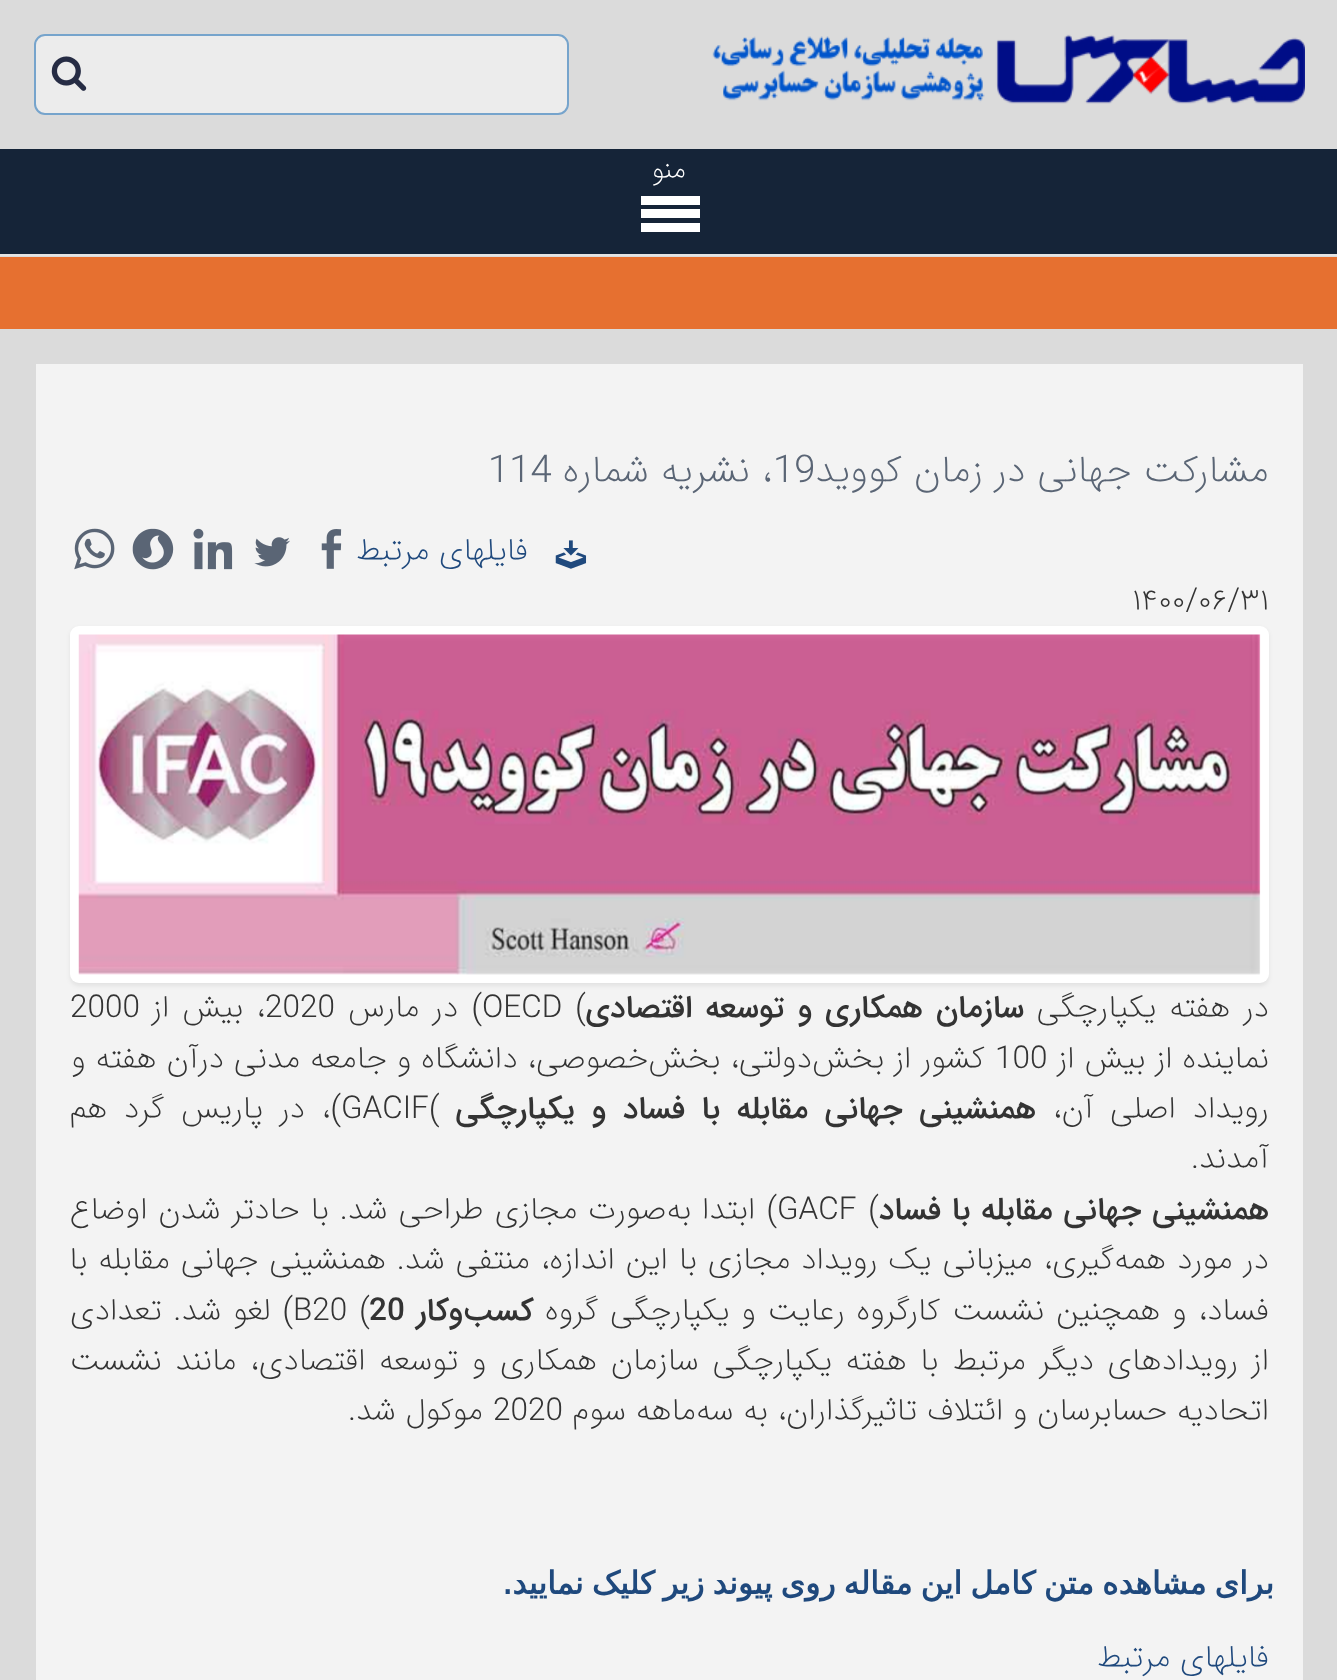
<?xml version="1.0" encoding="UTF-8"?>
<svg xmlns="http://www.w3.org/2000/svg" width="1337" height="1680">
    <defs>
        <clipPath id="clip1"><path d="M 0 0 H 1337 V 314 H 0 Z M 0 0 H 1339 V 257 H 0 Z" clip-rule="evenodd"/></clipPath>
        <filter id="blur1" x="-50%" y="-200%" width="200%" height="500%"><feGaussianBlur stdDeviation="22.5"/></filter>
        <filter id="blur2" x="-50%" y="-200%" width="200%" height="500%"><feGaussianBlur stdDeviation="2"/></filter>
    </defs>
    <rect width="100%" height="100%" fill="#DBDBDB"/>
    <g clip-path="url(#clip1)">
        <rect x="34" y="56" width="1271" height="189" fill="#000000" filter="url(#blur1)"/>
        <rect x="34" y="56" width="1271" height="189" fill="#000000" filter="url(#blur1)"/>
    </g>
    <rect x="0" y="254" width="1337" height="2" fill="#E4E4E4"/>
    <image x="712" y="34" width="593" height="70" href="img_01.png"/>
    <rect x="34" y="34" width="535" height="81" rx="11" fill="#ECECEC"/>
    <rect x="35" y="35" width="533" height="79" rx="10" fill="none" stroke="#005BAB" stroke-opacity="0.5" stroke-width="2"/>
    <image x="51" y="56" width="36" height="35" href="img_02.png"/>
    <rect x="0" y="149" width="1337" height="105" fill="#152438"/>
    <text x="686" y="178" font-family="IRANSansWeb" font-size="27" font-weight="200" direction="rtl" fill="#FFFFFF">منو</text>
    <rect x="641" y="196" width="59" height="9" fill="#FFFFFF"/>
    <rect x="641" y="209" width="59" height="9" fill="#FFFFFF"/>
    <rect x="641" y="223" width="59" height="9" fill="#FFFFFF"/>
    <rect x="0" y="257" width="1337" height="72" fill="#E67030"/>
    <rect x="36" y="364" width="1267" height="1316" fill="#F3F3F3"/>
    <text x="1269" y="482" font-family="IRANSansWeb" font-size="38.25" font-weight="200" direction="rtl" fill="#5A6575">مشارکت جهانی در زمان کووید</text>
    <text x="773" y="482" font-family="IRANSansWeb" font-size="38.25" font-weight="200" fill="#5A6575">19</text>
    <text x="772" y="482" font-family="IRANSansWeb" font-size="38.25" font-weight="200" direction="rtl" fill="#5A6575">، نشریه شماره</text>
    <text x="488" y="482" font-family="IRANSansWeb" font-size="38.25" font-weight="200" fill="#5A6575">114</text>
    <image x="555" y="540" width="32" height="29" href="img_03.png"/>
    <text x="528" y="560" font-family="IRANSansWeb" font-size="31.5" font-weight="200" direction="rtl" fill="#1F497D">فایلهای مرتبط</text>
    <image x="321" y="529" width="21" height="40" href="img_04.png"/>
    <image x="254" y="537" width="36" height="30" href="img_05.png"/>
    <image x="193" y="528" width="40" height="42" href="img_06.png"/>
    <image x="132" y="528" width="42" height="42" href="img_07.png"/>
    <image x="74" y="528" width="41" height="42" href="img_08.png"/>
    <text x="1132" y="610" font-family="IRANSansWeb" font-size="31.5" font-weight="200" fill="#333333">۱۴۰۰/۰۶/۳۱</text>
    <rect x="70" y="628" width="1199" height="358" rx="9" fill="#000000" fill-opacity="0.07" filter="url(#blur2)"/>
    <rect x="70" y="626" width="1199" height="357" rx="9" fill="#FFFFFF"/>
    <image x="78" y="634" width="1183" height="341" href="img_09.png"/>
    <text x="1269" y="1017" word-spacing="3.5" font-family="IRANSansWeb" font-size="31.5" font-weight="200" direction="rtl" fill="#333333">در هفته یکپارچگی</text>
    <text x="1024" y="1017" word-spacing="3.5" font-family="IRANSansWeb" font-size="31.5" font-weight="500" direction="rtl" fill="#333333">سازمان همکاری و توسعه اقتصادی</text>
    <text x="575" y="1017" font-family="IRANSansWeb" font-size="31.5" font-weight="200" fill="#333333">(</text>
    <text x="482" y="1017" font-family="IRANSansWeb" font-size="31.5" font-weight="200" fill="#333333">OECD</text>
    <text x="482" y="1017" word-spacing="3.5" font-family="IRANSansWeb" font-size="31.5" font-weight="200" direction="rtl" fill="#333333">) در مارس</text>
    <text x="265" y="1017" font-family="IRANSansWeb" font-size="31.5" font-weight="200" fill="#333333">2020</text>
    <text x="265" y="1017" word-spacing="3.5" font-family="IRANSansWeb" font-size="31.5" font-weight="200" direction="rtl" fill="#333333">، بیش از</text>
    <text x="70" y="1017" font-family="IRANSansWeb" font-size="31.5" font-weight="200" fill="#333333">2000</text>
    <text x="1269" y="1068" word-spacing="0.25" font-family="IRANSansWeb" font-size="31.5" font-weight="200" direction="rtl" fill="#333333">نماینده از بیش از</text>
    <text x="995" y="1068" font-family="IRANSansWeb" font-size="31.5" font-weight="200" fill="#333333">100</text>
    <text x="985" y="1068" word-spacing="0.25" font-family="IRANSansWeb" font-size="31.5" font-weight="200" direction="rtl" fill="#333333">کشور از بخش‌دولتی، بخش‌خصوصی، دانشگاه و جامعه مدنی درآن هفته و</text>
    <text x="1269" y="1118" word-spacing="7" font-family="IRANSansWeb" font-size="31.5" font-weight="200" direction="rtl" fill="#333333">رویداد اصلی آن،</text>
    <text x="1036" y="1118" word-spacing="7" font-family="IRANSansWeb" font-size="31.5" font-weight="500" direction="rtl" fill="#333333">همنشینی جهانی مقابله با فساد و یکپارچگی</text>
    <text x="341" y="1118" font-family="IRANSansWeb" font-size="31.5" font-weight="200" fill="#333333">GACIF(</text>
    <text x="341" y="1118" word-spacing="7" font-family="IRANSansWeb" font-size="31.5" font-weight="200" direction="rtl" fill="#333333">)، در پاریس گرد هم</text>
    <text x="1269" y="1168" font-family="IRANSansWeb" font-size="31.5" font-weight="200" direction="rtl" fill="#333333">آمدند.</text>
    <text x="1269" y="1219" word-spacing="1.25" font-family="IRANSansWeb" font-size="31.5" font-weight="500" direction="rtl" fill="#333333">همنشینی جهانی مقابله با فساد</text>
    <text x="868" y="1219" font-family="IRANSansWeb" font-size="31.5" font-weight="200" fill="#333333">(</text>
    <text x="777" y="1219" font-family="IRANSansWeb" font-size="31.5" font-weight="200" fill="#333333">GACF</text>
    <text x="777" y="1219" word-spacing="1.25" font-family="IRANSansWeb" font-size="31.5" font-weight="200" direction="rtl" fill="#333333">) ابتدا به‌صورت مجازی طراحی شد. با حادتر شدن اوضاع</text>
    <text font-family="IRANSansWeb" font-size="31.5" font-weight="200" direction="rtl" fill="#333333">
        <tspan x="1269" y="1269" word-spacing="1.2">در مورد همه‌گیری، میزبانی یک رویداد مجازی با این اندازه، منتفی شد. همنشینی جهانی مقابله با</tspan>
        <tspan x="1269" y="1320" word-spacing="2">فساد، و همچنین نشست کارگروه رعایت و یکپارچگی گروه</tspan>
    </text>
    <text x="534" y="1320" font-family="IRANSansWeb" font-size="31.5" font-weight="500" direction="rtl" fill="#333333">کسب‌وکار</text>
    <text x="369" y="1320" font-family="IRANSansWeb" font-size="31.5" font-weight="500" fill="#333333">20</text>
    <text x="359" y="1320" font-family="IRANSansWeb" font-size="31.5" font-weight="200" fill="#333333">(</text>
    <text x="293" y="1320" font-family="IRANSansWeb" font-size="31.5" font-weight="200" fill="#333333">B20</text>
    <text x="293" y="1320" word-spacing="2" font-family="IRANSansWeb" font-size="31.5" font-weight="200" direction="rtl" fill="#333333">) لغو شد. تعدادی</text>
    <text font-family="IRANSansWeb" font-size="31.5" font-weight="200" direction="rtl" fill="#333333">
        <tspan x="1269" y="1370" word-spacing="4">از رویدادهای دیگر مرتبط با هفته یکپارچگی سازمان همکاری و توسعه اقتصادی، مانند نشست</tspan>
        <tspan x="1269" y="1420">اتحادیه حسابرسان و ائتلاف تاثیرگذاران، به سه‌ماهه سوم</tspan>
    </text>
    <text x="493" y="1420" font-family="IRANSansWeb" font-size="31.5" font-weight="200" fill="#333333">2020</text>
    <text x="483" y="1420" font-family="IRANSansWeb" font-size="31.5" font-weight="200" direction="rtl" fill="#333333">موکول شد.</text>
    <text x="1274" y="1594" word-spacing="-1.9" font-family="DejaVu Sans" font-size="31.5" font-weight="700" direction="rtl" fill="#1F497D">برای مشاهده متن کامل این مقاله روی پیوند زیر کلیک نمایید.</text>
    <text x="1269" y="1667" font-family="IRANSansWeb" font-size="31.5" font-weight="200" direction="rtl" fill="#1F497D">فایلهای مرتبط</text>
</svg>
